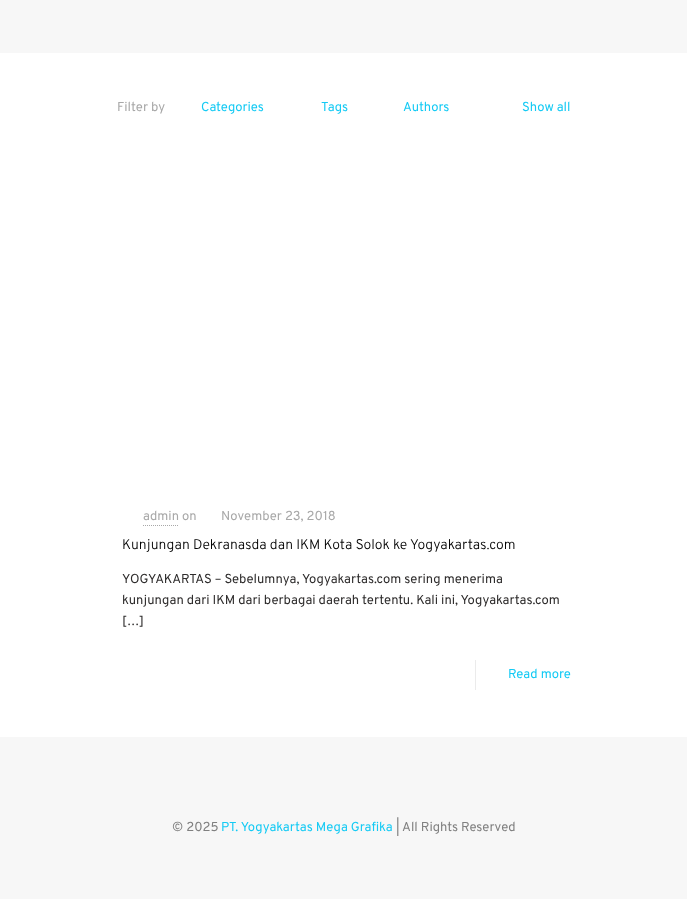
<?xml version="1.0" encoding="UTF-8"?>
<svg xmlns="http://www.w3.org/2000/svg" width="687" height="899">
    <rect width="100%" height="100%" fill="#FFFFFF"/>
    <rect x="0" y="0" width="687" height="53" fill="#F7F7F7"/>
    <text x="117" y="111" font-family="Overpass" font-size="13" fill="#A8A8A8">Filter by</text>
    <text x="201" y="111" font-family="Overpass" font-size="13" fill="#14CAF4">Categories</text>
    <text x="321" y="111" font-family="Overpass" font-size="13" fill="#14CAF4">Tags</text>
    <text x="403" y="111" font-family="Overpass" font-size="13" fill="#14CAF4">Authors</text>
    <text x="522" y="111" font-family="Overpass" font-size="13" fill="#14CAF4">Show all</text>
    <text x="143" y="520" font-family="Overpass" font-size="13" fill="#A8A8A8">admin on</text>
    <path d="M 143 525.5 H 179" fill="none" stroke="#A8A8A8" stroke-dasharray="1 1"/>
    <text x="221" y="520" font-family="Overpass" font-size="13" fill="#A8A8A8">November 23, 2018</text>
    <text x="122" y="549" font-family="Overpass" font-size="14" font-weight="300" fill="#000000">Kunjungan Dekranasda dan IKM Kota Solok ke Yogyakartas.com</text>
    <text font-family="Overpass" font-size="13" fill="#2E2C2C">
        <tspan x="122" y="583">YOGYAKARTAS – Sebelumnya, Yogyakartas.com sering menerima</tspan>
        <tspan x="122" y="604">kunjungan dari IKM dari berbagai daerah tertentu. Kali ini, Yogyakartas.com</tspan>
        <tspan x="122" y="625">[…]</tspan>
    </text>
    <rect x="475" y="660" width="1" height="30" fill="#EBEBEB"/>
    <text x="508" y="678" font-family="Overpass" font-size="13" fill="#14CAF4">Read more</text>
    <rect x="0" y="737" width="687" height="162" fill="#F7F7F7"/>
    <text x="172" y="831" font-family="Overpass" font-size="13" fill="#808080">© 2025</text>
    <text x="221" y="831" font-family="Overpass" font-size="13" fill="#14CAF4">PT. Yogyakartas Mega Grafika</text>
    <text x="396" y="831" font-family="Overpass" font-size="13" fill="#808080">| All Rights Reserved</text>
</svg>
